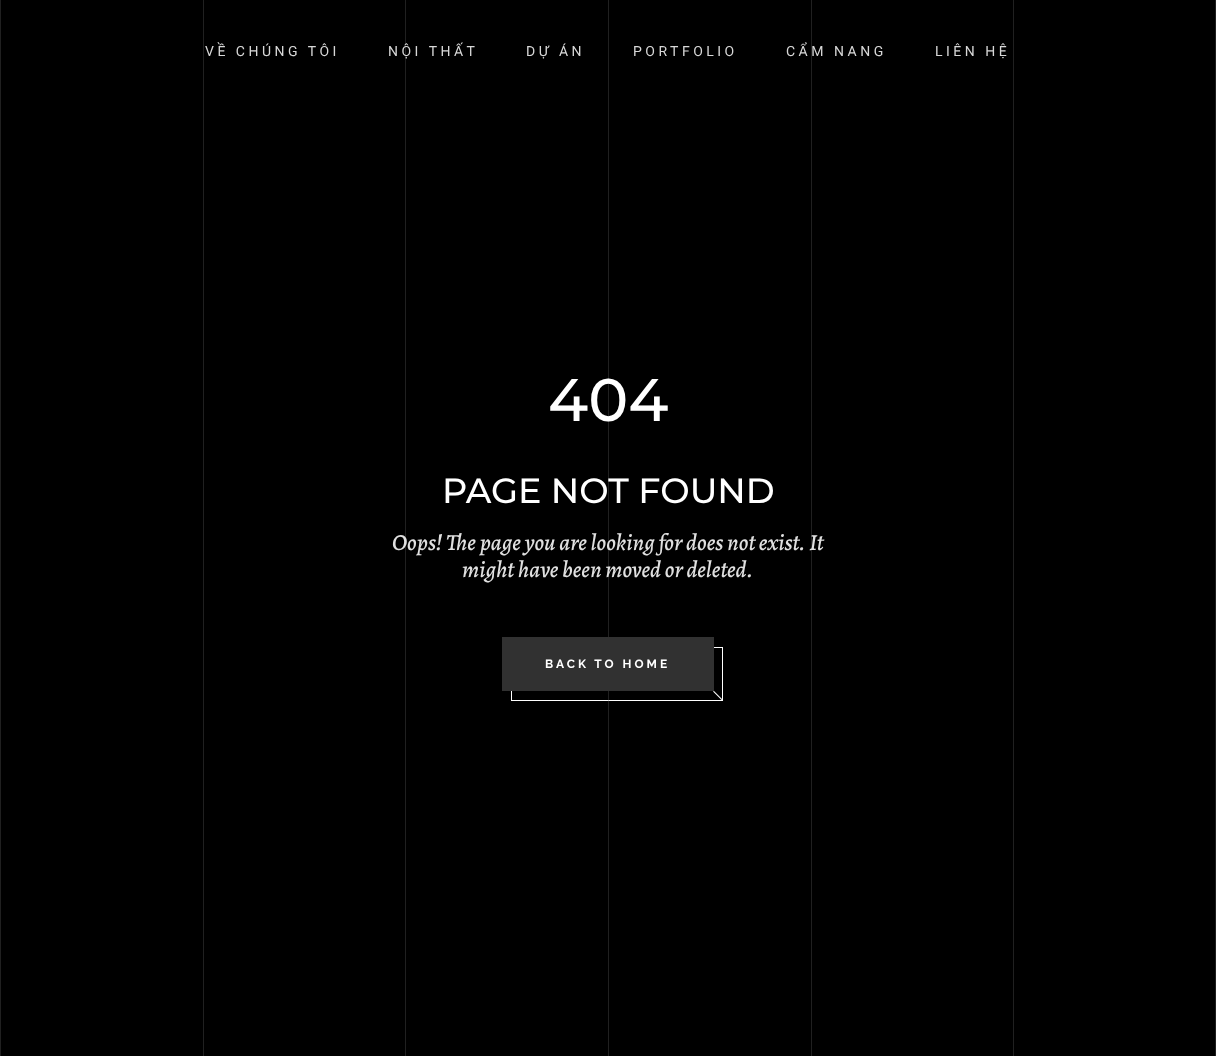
<?xml version="1.0" encoding="UTF-8"?>
<svg xmlns="http://www.w3.org/2000/svg" width="1216" height="1056">
    <rect width="100%" height="100%" fill="#000000"/>
    <text x="205" y="56" font-family="Roboto" font-size="14" letter-spacing="3.5" fill="#D8D8D8">VỀ CHÚNG TÔI</text>
    <rect x="405" y="0" width="1" height="1056" fill="#202020"/>
    <text x="388" y="56" font-family="Roboto" font-size="14" letter-spacing="3.5" fill="#D8D8D8">NỘI THẤT</text>
    <text x="526" y="56" font-family="Roboto" font-size="14" letter-spacing="3.5" fill="#D8D8D8">DỰ ÁN</text>
    <text x="633" y="56" font-family="Roboto" font-size="14" letter-spacing="3.5" fill="#D8D8D8">PORTFOLIO</text>
    <rect x="811" y="0" width="1" height="1056" fill="#202020"/>
    <text x="786" y="56" font-family="Roboto" font-size="14" letter-spacing="3.5" fill="#D8D8D8">CẨM NANG</text>
    <text x="935" y="56" font-family="Roboto" font-size="14" letter-spacing="3.5" fill="#D8D8D8">LIÊN HỆ</text>
    <rect x="0" y="0" width="1" height="1056" fill="#202020"/>
    <rect x="203" y="0" width="1" height="1056" fill="#202020"/>
    <rect x="511.5" y="647.5" width="211" height="53" fill="none" stroke="#FFFFFF"/>
    <rect x="608" y="0" width="1" height="1056" fill="#696969" fill-opacity="0.3"/>
    <rect x="1013" y="0" width="1" height="1056" fill="#202020"/>
    <rect x="1215" y="0" width="1" height="1056" fill="#202020"/>
    <text x="548" y="421" font-family="Montserrat" font-size="60" font-weight="500" fill="#FFFFFF">404</text>
    <text x="442" y="503" font-family="Montserrat" font-size="35" font-weight="500" fill="#FFFFFF">PAGE NOT FOUND</text>
    <text x="392" y="550" font-family="Alegreya" font-size="23" font-weight="500" font-style="italic" fill="#E0E0E0">Oops! The page you are looking for does not exist. It</text>
    <text x="462" y="577" font-family="Alegreya" font-size="23" font-weight="500" font-style="italic" fill="#E0E0E0">might have been moved or deleted.</text>
    <rect x="502" y="637" width="212" height="54" fill="#313131"/>
    <text x="545" y="668" font-family="Raleway" font-size="12" font-weight="700" letter-spacing="3" fill="#FFFFFF">BACK TO HOME</text>
    <path d="M 714 691 L 722.5 699.5 L 721.5 700 L 713 691.5 Z" fill="#FFFFFF"/>
</svg>
